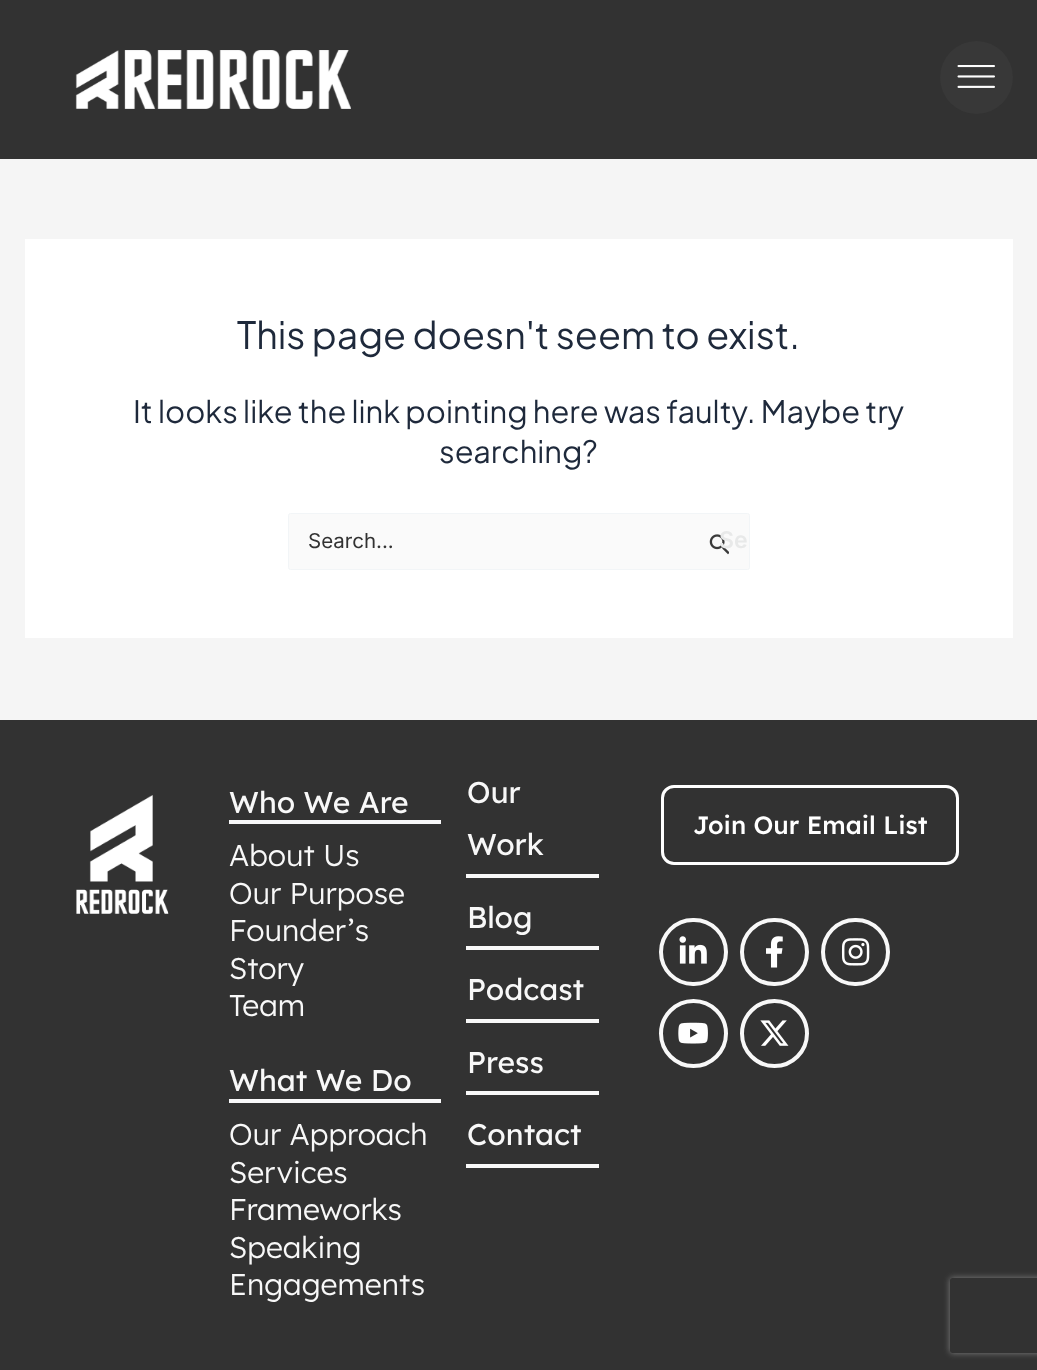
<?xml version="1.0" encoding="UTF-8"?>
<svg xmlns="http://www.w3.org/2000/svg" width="1037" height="1370">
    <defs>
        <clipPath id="clip1"><path d="M 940 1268 H 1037 V 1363 H 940 Z M 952.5 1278 H 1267.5 C 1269 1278 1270 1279 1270 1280.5 V 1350.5 C 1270 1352 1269 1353 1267.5 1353 H 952.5 C 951 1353 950 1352 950 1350.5 V 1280.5 C 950 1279 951 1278 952.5 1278 Z" clip-rule="evenodd"/></clipPath>
        <filter id="blur1" x="-50%" y="-200%" width="200%" height="500%"><feGaussianBlur stdDeviation="3"/></filter>
    </defs>
    <rect width="100%" height="100%" fill="#F5F5F5"/>
    <rect x="0" y="0" width="1037" height="159" fill="#323232"/>
    <image x="75" y="50" width="276" height="59" href="img_01.png"/>
    <circle cx="976.5" cy="77.5" r="36.5" fill="#383838"/>
    <image x="957" y="65" width="38" height="23" href="img_02.png"/>
    <rect x="25" y="239" width="988" height="399" fill="#FFFFFF"/>
    <text x="237" y="349" font-family="Plus Jakarta Sans" font-size="37.5" fill="#1E293B">This page doesn't seem to exist.</text>
    <text x="133" y="423" font-family="Plus Jakarta Sans" font-size="30.75" fill="#1E293B">It looks like the link pointing here was faulty. Maybe try</text>
    <text x="439" y="463" font-family="Plus Jakarta Sans" font-size="30.75" fill="#1E293B">searching?</text>
    <rect x="288.5" y="513.5" width="461" height="56" rx="2" fill="#FAFAFA" stroke="#F2F5F7"/>
    <text x="308" y="548" font-family="Inter" font-size="20.5" fill="#323232">Search...</text>
    <image x="709" y="534" width="20" height="21" href="img_03.png"/>
    <text x="719" y="548" font-family="Inter" font-size="23" font-weight="600" fill="#E8E9E9">Se</text>
    <rect x="0" y="720" width="1037" height="650" fill="#323232"/>
    <image x="76" y="795" width="93" height="119" href="img_04.png"/>
    <rect x="229" y="820" width="212" height="4" fill="#F8F8F9"/>
    <text x="229" y="813" font-family="Lexend" font-size="30" fill="#F8F8F8">Who We Are</text>
    <text font-family="Lexend" font-size="30" font-weight="300" fill="#F8F8F8">
        <tspan x="229" y="866">About Us</tspan>
        <tspan x="229" y="904">Our Purpose</tspan>
        <tspan x="229" y="941">Founder’s</tspan>
        <tspan x="229" y="979">Story</tspan>
        <tspan x="229" y="1016">Team</tspan>
    </text>
    <rect x="229" y="1099" width="212" height="4" fill="#F8F8F9"/>
    <text x="229" y="1091" font-family="Lexend" font-size="30" fill="#F8F8F8">What We Do</text>
    <text font-family="Lexend" font-size="30" font-weight="300" fill="#F8F8F8">
        <tspan x="229" y="1145">Our Approach</tspan>
        <tspan x="229" y="1183">Services</tspan>
        <tspan x="229" y="1220">Frameworks</tspan>
        <tspan x="229" y="1258">Speaking</tspan>
        <tspan x="229" y="1295">Engagements</tspan>
    </text>
    <text font-family="Lexend" font-size="30" fill="#F8F8F8">
        <tspan x="467" y="803">Our</tspan>
        <tspan x="467" y="855">Work</tspan>
    </text>
    <rect x="466" y="874" width="133" height="4" fill="#F8F8F8"/>
    <text x="467" y="928" font-family="Lexend" font-size="30" fill="#F8F8F8">Blog</text>
    <rect x="466" y="946" width="133" height="4" fill="#F8F8F8"/>
    <text x="467" y="1000" font-family="Lexend" font-size="30" fill="#F8F8F8">Podcast</text>
    <rect x="466" y="1019" width="133" height="4" fill="#F8F8F8"/>
    <text x="467" y="1073" font-family="Lexend" font-size="30" fill="#F8F8F8">Press</text>
    <rect x="466" y="1091" width="133" height="4" fill="#F8F8F8"/>
    <text x="467" y="1145" font-family="Lexend" font-size="30" fill="#F8F8F8">Contact</text>
    <rect x="466" y="1164" width="133" height="4" fill="#F8F8F8"/>
    <rect x="662.5" y="786.5" width="295" height="77" rx="11.5" fill="none" stroke="#FFFFFF" stroke-width="3"/>
    <text x="693" y="834" font-family="Lexend" font-size="25" font-weight="500" fill="#FFFFFF">Join Our Email List</text>
    <rect x="661" y="920" width="65" height="64" rx="32" fill="none" stroke="#F8F8F8" stroke-width="4"/>
    <image x="679" y="936" width="28" height="28" href="img_05.png"/>
    <rect x="742" y="920" width="65" height="64" rx="32" fill="none" stroke="#F8F8F8" stroke-width="4"/>
    <image x="766" y="936" width="17" height="32" href="img_06.png"/>
    <rect x="823" y="920" width="65" height="64" rx="32" fill="none" stroke="#F8F8F8" stroke-width="4"/>
    <image x="841" y="938" width="29" height="28" href="img_07.png"/>
    <circle cx="693.5" cy="1033.5" r="32.5" fill="none" stroke="#F8F8F8" stroke-width="4"/>
    <image x="678" y="1022" width="30" height="22" href="img_08.png"/>
    <circle cx="774.5" cy="1033.5" r="32.5" fill="none" stroke="#F8F8F8" stroke-width="4"/>
    <image x="760" y="1020" width="29" height="26" href="img_09.png"/>
    <g clip-path="url(#clip1)">
        <rect x="950" y="1278" width="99" height="75" rx="2.5" fill="#808080" filter="url(#blur1)"/>
    </g>
</svg>
